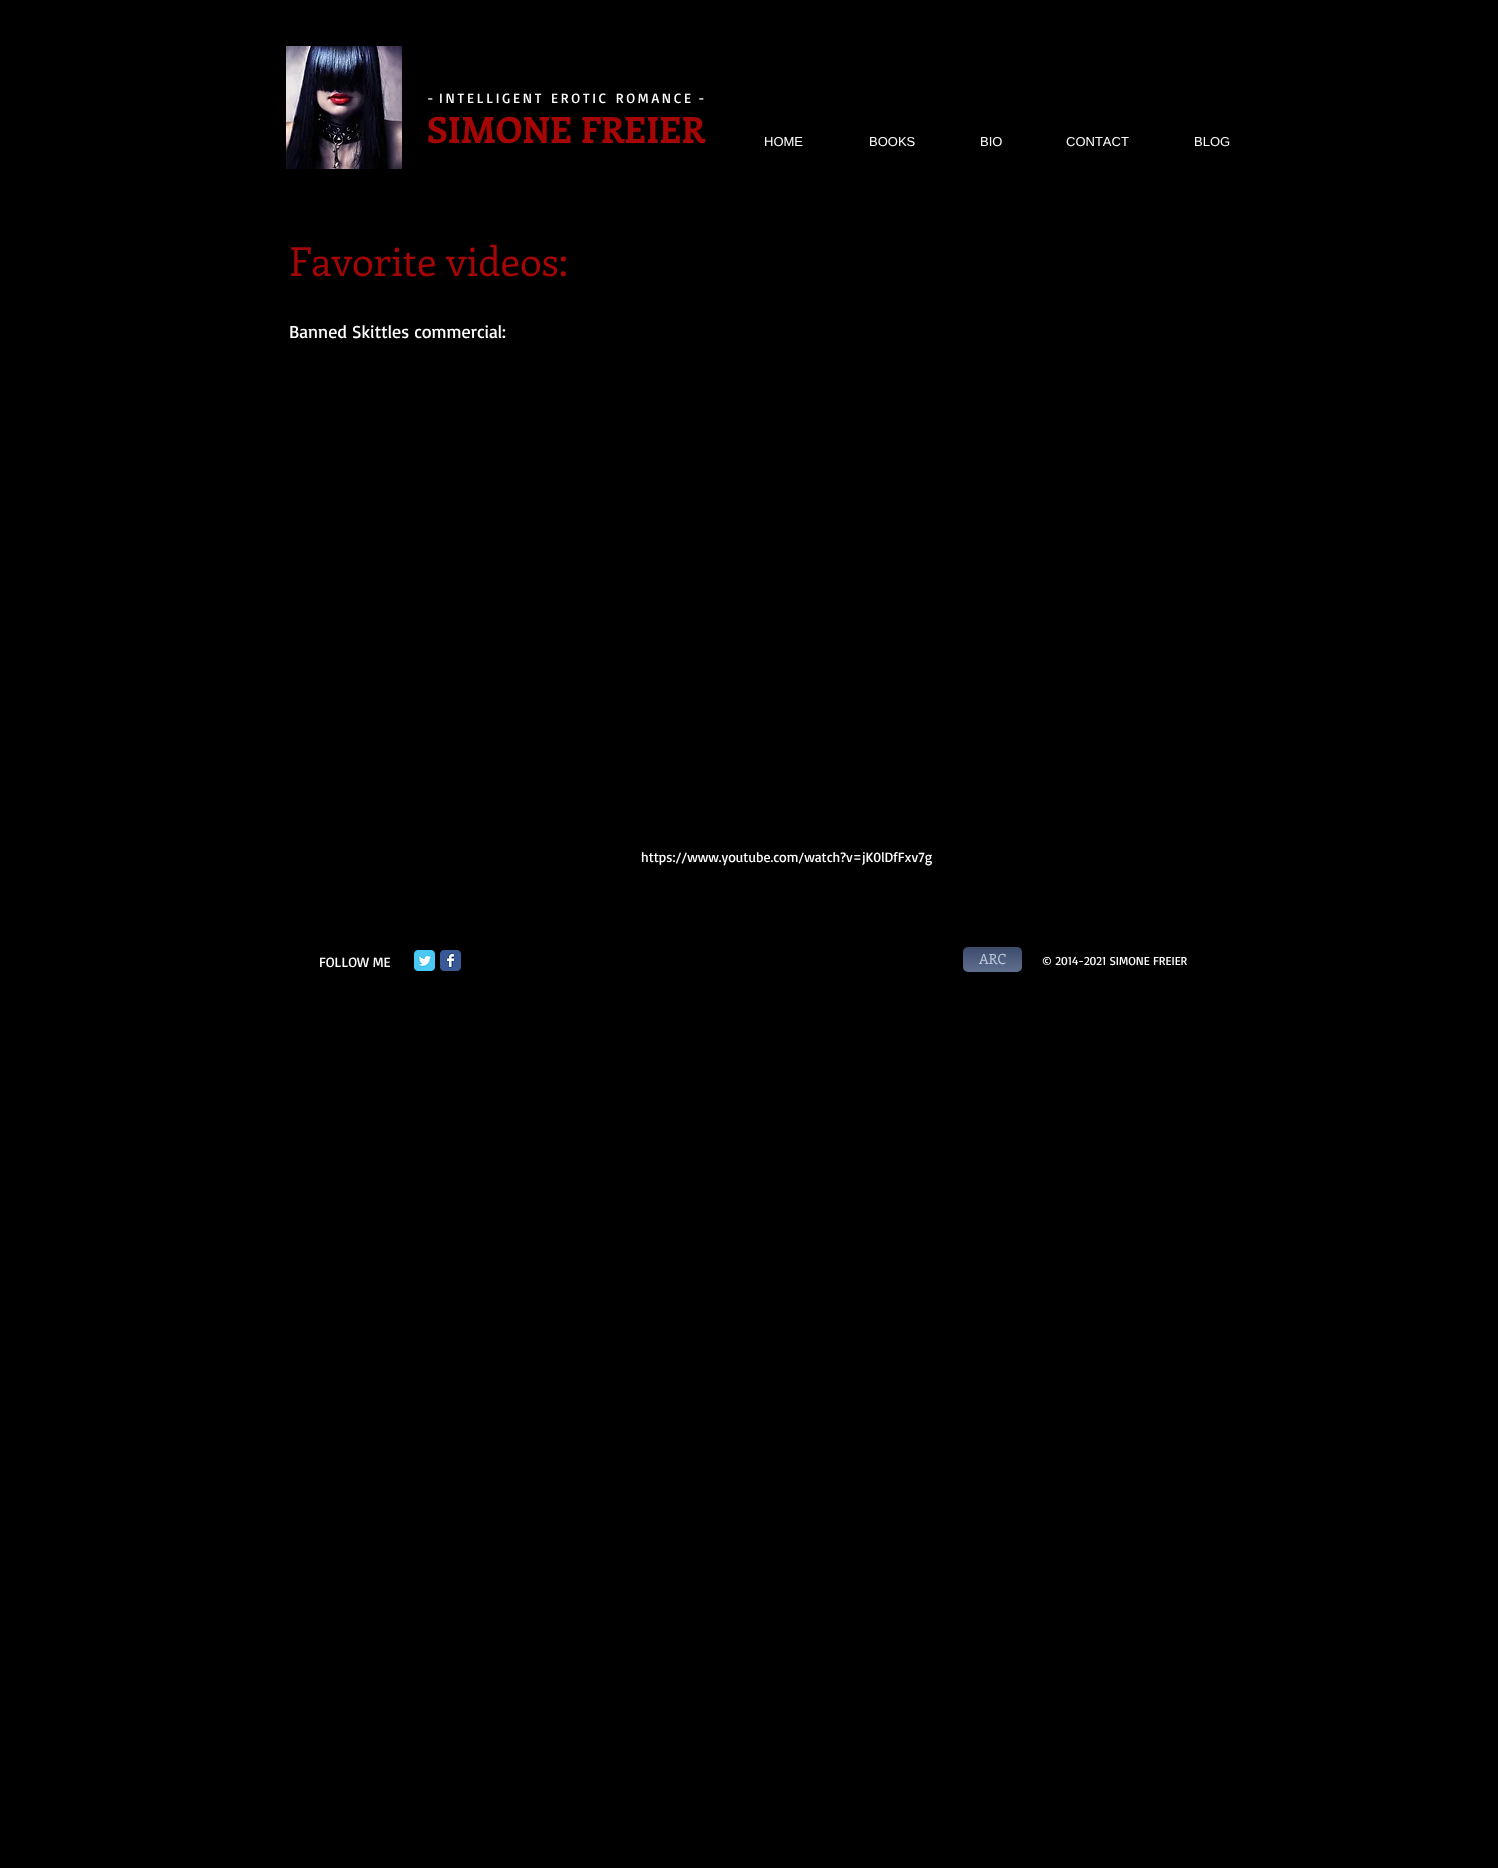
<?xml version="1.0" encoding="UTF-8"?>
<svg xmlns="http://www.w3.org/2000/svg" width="1498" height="1868">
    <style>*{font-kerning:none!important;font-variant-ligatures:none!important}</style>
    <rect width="100%" height="100%" fill="#000000"/>
    <image x="286" y="46" width="116" height="123" href="img_01.png"/>
    <text x="427" y="103" font-family="Basic" font-size="14" fill="#FFFFFF">-</text>
    <text x="439" y="103" font-family="Basic" font-size="14" letter-spacing="2.8" fill="#FFFFFF">INTELLIGENT EROTIC ROMANCE</text>
    <text x="698" y="103" font-family="Basic" font-size="14" fill="#FFFFFF">-</text>
    <text x="427" y="143" font-family="Enriqueta" font-size="36" font-weight="700" fill="#A40606">SIMONE FREIER</text>
    <text x="764" y="146" font-family="Liberation Sans" font-size="13" fill="#FFFFFF">HOME</text>
    <text x="869" y="146" font-family="Liberation Sans" font-size="13" fill="#FFFFFF">BOOKS</text>
    <text x="980" y="146" font-family="Liberation Sans" font-size="13" fill="#FFFFFF">BIO</text>
    <text x="1066" y="146" font-family="Liberation Sans" font-size="13" fill="#FFFFFF">CONTACT</text>
    <text x="1194" y="146" font-family="Liberation Sans" font-size="13" fill="#FFFFFF">BLOG</text>
    <text x="289" y="276" font-family="Enriqueta" font-size="40" fill="#A40606">Favorite videos:</text>
    <text x="289" y="338" font-family="Basic" font-size="18" fill="#FFFFFF">Banned Skittles commercial:</text>
    <text x="641" y="862" font-family="Basic" font-size="14" fill="#FFFFFF">https://www.youtube.com/watch?v=jK0lDfFxv7g</text>
    <text x="319" y="967" font-family="Basic" font-size="14" fill="#FFFFFF">FOLLOW ME</text>
    <image x="414" y="950" width="21" height="21" href="img_02.png"/>
    <image x="440" y="950" width="21" height="21" href="img_03.png"/>
    <rect x="963" y="947" width="59" height="25" rx="5" fill="#394C75"/>
    <image x="963" y="947" width="59" height="24" href="img_04.png"/>
    <image x="963" y="947" width="59" height="25" href="img_05.png"/>
    <text x="979" y="964" font-family="Enriqueta" font-size="14" fill="#C0C9DC">ARC</text>
    <text x="1042" y="965" font-family="Basic" font-size="12" fill="#FFFFFF">© 2014-2021 SIMONE FREIER</text>
</svg>
